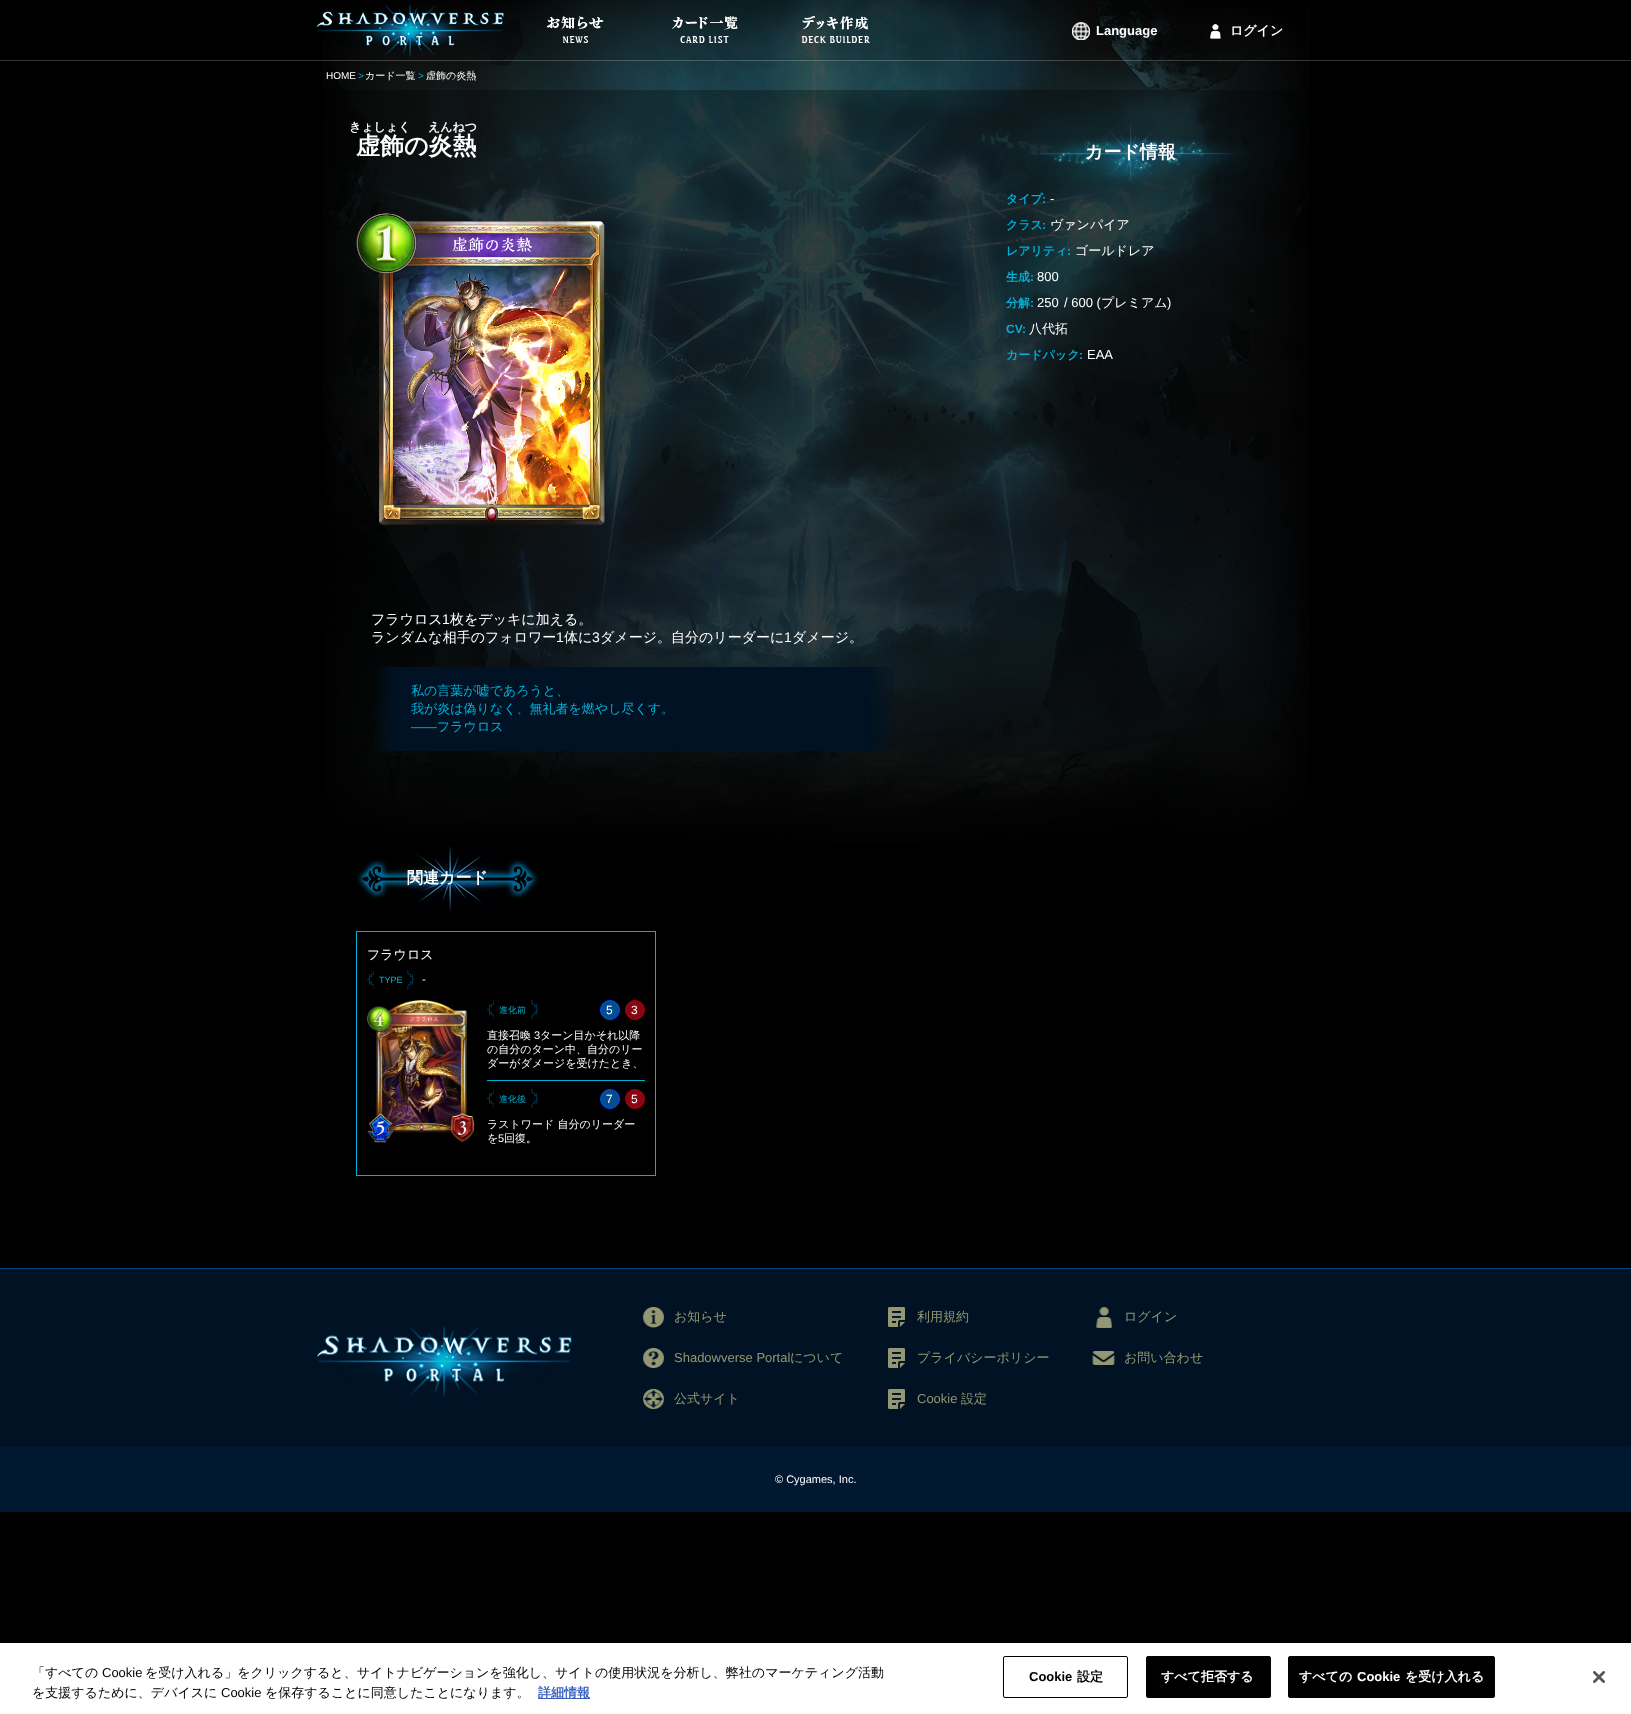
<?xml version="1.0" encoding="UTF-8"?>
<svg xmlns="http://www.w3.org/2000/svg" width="1631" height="1714">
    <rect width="100%" height="100%" fill="#000000"/>
    <image x="323" y="0" width="987" height="843" href="img_07.png"/>
    <rect x="324" y="0" width="983" height="60" fill="#000000" fill-opacity="0.5"/>
    <image x="316" y="4" width="188" height="53" href="img_01.png"/>
    <image x="546" y="16" width="58" height="27" href="img_02.png"/>
    <image x="671" y="16" width="67" height="27" href="img_03.png"/>
    <image x="801" y="16" width="69" height="27" href="img_04.png"/>
    <image x="1072" y="22" width="18" height="18" href="img_05.png"/>
    <text x="1096" y="35" font-family="Liberation Sans" font-size="13" font-weight="700" fill="#FFFFFF">Language</text>
    <image x="1210" y="24" width="11" height="15" href="img_06.png"/>
    <text x="1230" y="35" font-family="WenQuanYi Zen Hei" font-size="13" font-weight="700" fill="#FFFFFF">ログイン</text>
    <rect x="324" y="60" width="984" height="30" fill="#000000" fill-opacity="0.43"/>
    <rect x="0" y="60" width="1631" height="1" fill="#FFFFFF" fill-opacity="0.2"/>
    <text x="326" y="79" font-family="Liberation Sans" font-size="10" fill="#FFFFFF">HOME</text>
    <text x="358" y="79" font-family="Liberation Sans" font-size="10" fill="#01B1DA">&gt;</text>
    <text x="365" y="79" font-family="WenQuanYi Zen Hei" font-size="10" font-weight="500" fill="#FFFFFF">カード一覧</text>
    <text x="418" y="79" font-family="Liberation Sans" font-size="10" fill="#01B1DA">&gt;</text>
    <text x="426" y="79" font-family="WenQuanYi Zen Hei" font-size="10" font-weight="500" fill="#FFFFFF">虚飾の炎熱</text>
    <rect x="323" y="90" width="987" height="753" fill="#000000" fill-opacity="0.6"/>
    <text x="349" y="131" font-family="WenQuanYi Zen Hei" font-size="12" font-weight="700" fill="#FFFFFF">きょしょく</text>
    <text x="356" y="154" font-family="WenQuanYi Zen Hei" font-size="24" font-weight="700" fill="#FFFFFF">虚飾</text>
    <text x="428" y="131" font-family="WenQuanYi Zen Hei" font-size="12" font-weight="700" fill="#FFFFFF">えんねつ</text>
    <text x="404" y="154" font-family="WenQuanYi Zen Hei" font-size="24" font-weight="700" fill="#FFFFFF">の炎熱</text>
    <image x="356" y="213" width="249" height="312" href="img_08.png"/>
    <image x="452" y="237" width="80" height="16" href="img_09.png"/>
    <text x="371" y="624" font-family="WenQuanYi Zen Hei" font-size="14" font-weight="500" fill="#FFFFFF">フラウロス</text>
    <text x="442" y="624" font-family="Liberation Sans" font-size="14" fill="#FFFFFF">1</text>
    <text x="450" y="624" font-family="WenQuanYi Zen Hei" font-size="14" font-weight="500" fill="#FFFFFF">枚をデッキに加える。</text>
    <text x="371" y="642" font-family="WenQuanYi Zen Hei" font-size="14" font-weight="500" fill="#FFFFFF">ランダムな相手のフォロワー</text>
    <text x="556" y="642" font-family="Liberation Sans" font-size="14" fill="#FFFFFF">1</text>
    <text x="564" y="642" font-family="WenQuanYi Zen Hei" font-size="14" font-weight="500" fill="#FFFFFF">体に</text>
    <text x="592" y="642" font-family="Liberation Sans" font-size="14" fill="#FFFFFF">3</text>
    <text x="600" y="642" font-family="WenQuanYi Zen Hei" font-size="14" font-weight="500" fill="#FFFFFF">ダメージ。自分のリーダーに</text>
    <text x="784" y="642" font-family="Liberation Sans" font-size="14" fill="#FFFFFF">1</text>
    <text x="792" y="642" font-family="WenQuanYi Zen Hei" font-size="14" font-weight="500" fill="#FFFFFF">ダメージ。</text>
    <image x="374" y="667" width="520" height="84" href="img_10.png"/>
    <text font-family="WenQuanYi Zen Hei" font-size="13" font-weight="500" fill="#01B1DA">
        <tspan x="411" y="695">私の言葉が嘘であろうと、</tspan>
        <tspan x="411" y="713">我が炎は偽りなく、無礼者を燃やし尽くす。</tspan>
    </text>
    <text x="411" y="731" font-family="Liberation Sans" font-size="13" fill="#01B1DA">――</text>
    <text x="437" y="731" font-family="WenQuanYi Zen Hei" font-size="13" font-weight="500" fill="#01B1DA">フラウロス</text>
    <image x="1029" y="123" width="219" height="62" href="img_11.png"/>
    <text x="1085" y="158" font-family="WenQuanYi Zen Hei" font-size="18" font-weight="700" fill="#FFFFFF">カード情報</text>
    <text x="1006" y="203" font-family="WenQuanYi Zen Hei" font-size="12" font-weight="700" fill="#01B1DA">タイプ</text>
    <text x="1042" y="203" font-family="Liberation Sans" font-size="12" font-weight="700" fill="#01B1DA">:</text>
    <text x="1050" y="203" font-family="Liberation Sans" font-size="13" fill="#FFFFFF">-</text>
    <text x="1006" y="229" font-family="WenQuanYi Zen Hei" font-size="12" font-weight="700" fill="#01B1DA">クラス</text>
    <text x="1042" y="229" font-family="Liberation Sans" font-size="12" font-weight="700" fill="#01B1DA">:</text>
    <text x="1050" y="229" font-family="WenQuanYi Zen Hei" font-size="13" font-weight="500" fill="#FFFFFF">ヴァンパイア</text>
    <text x="1006" y="255" font-family="WenQuanYi Zen Hei" font-size="12" font-weight="700" fill="#01B1DA">レアリティ</text>
    <text x="1067" y="255" font-family="Liberation Sans" font-size="12" font-weight="700" fill="#01B1DA">:</text>
    <text x="1075" y="255" font-family="WenQuanYi Zen Hei" font-size="13" font-weight="500" fill="#FFFFFF">ゴールドレア</text>
    <text x="1006" y="281" font-family="WenQuanYi Zen Hei" font-size="12" font-weight="700" fill="#01B1DA">生成</text>
    <text x="1030" y="281" font-family="Liberation Sans" font-size="12" font-weight="700" fill="#01B1DA">:</text>
    <text x="1037" y="281" font-family="Liberation Sans" font-size="13" fill="#FFFFFF">800</text>
    <text x="1006" y="307" font-family="WenQuanYi Zen Hei" font-size="12" font-weight="700" fill="#01B1DA">分解</text>
    <text x="1030" y="307" font-family="Liberation Sans" font-size="12" font-weight="700" fill="#01B1DA">:</text>
    <text x="1037" y="307" font-family="Liberation Sans" font-size="13" fill="#FFFFFF">250</text>
    <text x="1064" y="307" font-family="Liberation Sans" font-size="13" fill="#FFFFFF">/ 600 (</text>
    <text x="1101" y="307" font-family="WenQuanYi Zen Hei" font-size="13" font-weight="500" fill="#FFFFFF">プレミアム</text>
    <text x="1167" y="307" font-family="Liberation Sans" font-size="13" fill="#FFFFFF">)</text>
    <text x="1006" y="333" font-family="Liberation Sans" font-size="12" font-weight="700" fill="#01B1DA">CV:</text>
    <text x="1029" y="333" font-family="WenQuanYi Zen Hei" font-size="13" font-weight="500" fill="#FFFFFF">八代拓</text>
    <text x="1006" y="359" font-family="WenQuanYi Zen Hei" font-size="12" font-weight="700" fill="#01B1DA">カードパック</text>
    <text x="1079" y="359" font-family="Liberation Sans" font-size="12" font-weight="700" fill="#01B1DA">:</text>
    <text x="1087" y="359" font-family="Liberation Sans" font-size="13" fill="#FFFFFF">EAA</text>
    <image x="356" y="845" width="183" height="66" href="img_12.png"/>
    <text x="407" y="883" font-family="WenQuanYi Zen Hei" font-size="16" font-weight="700" fill="#FFFFFF">関連カード</text>
    <rect x="356.5" y="931.5" width="299" height="244" fill="none" stroke="#01B1DA"/>
    <text x="367" y="959" font-family="WenQuanYi Zen Hei" font-size="13" font-weight="500" fill="#FFFFFF">フラウロス</text>
    <image x="367" y="970" width="7" height="19" href="img_13.png"/>
    <text x="379" y="983" font-family="Liberation Sans" font-size="9" fill="#01B1DA">TYPE</text>
    <image x="407" y="970" width="7" height="19" href="img_14.png"/>
    <text x="422" y="983" font-family="Liberation Sans" font-size="11" fill="#FFFFFF">-</text>
    <image x="367" y="1000" width="108" height="143" href="img_15.png"/>
    <image x="410" y="1016" width="28" height="6" href="img_16.png"/>
    <image x="487" y="1000" width="7" height="19" href="img_13.png"/>
    <text x="499" y="1013" font-family="WenQuanYi Zen Hei" font-size="9" font-weight="500" fill="#01B1DA">進化前</text>
    <image x="531" y="1000" width="7" height="19" href="img_14.png"/>
    <circle cx="610" cy="1010" r="9.5" fill="#064D8F" stroke="#004EFF"/>
    <text x="606" y="1014" font-family="Liberation Sans" font-size="12" fill="#FFFFFF">5</text>
    <circle cx="635" cy="1010" r="9.5" fill="#870714" stroke="#B20000"/>
    <text x="631" y="1014" font-family="Liberation Sans" font-size="12" fill="#FFFFFF">3</text>
    <text x="487" y="1039" font-family="WenQuanYi Zen Hei" font-size="11" font-weight="500" fill="#FFFFFF">直接召喚</text>
    <text x="534" y="1039" font-family="Liberation Sans" font-size="11" fill="#FFFFFF">3</text>
    <text x="540" y="1039" font-family="WenQuanYi Zen Hei" font-size="11" font-weight="500" fill="#FFFFFF">ターン目かそれ以降</text>
    <text font-family="WenQuanYi Zen Hei" font-size="11" font-weight="500" fill="#FFFFFF">
        <tspan x="487" y="1053">の自分のターン中、自分のリー</tspan>
        <tspan x="487" y="1067">ダーがダメージを受けたとき、</tspan>
    </text>
    <rect x="487" y="1080" width="158" height="1" fill="#01B1DA"/>
    <image x="487" y="1089" width="7" height="19" href="img_13.png"/>
    <text x="499" y="1102" font-family="WenQuanYi Zen Hei" font-size="9" font-weight="500" fill="#01B1DA">進化後</text>
    <image x="531" y="1089" width="7" height="19" href="img_14.png"/>
    <circle cx="610" cy="1099" r="9.5" fill="#064D8F" stroke="#004EFF"/>
    <text x="606" y="1103" font-family="Liberation Sans" font-size="12" fill="#FFFFFF">7</text>
    <circle cx="635" cy="1099" r="9.5" fill="#870714" stroke="#B20000"/>
    <text x="631" y="1103" font-family="Liberation Sans" font-size="12" fill="#FFFFFF">5</text>
    <text font-family="WenQuanYi Zen Hei" font-size="11" font-weight="500" fill="#FFFFFF">
        <tspan x="487" y="1128">ラストワード 自分のリーダー</tspan>
        <tspan x="487" y="1142">を</tspan>
    </text>
    <text x="498" y="1142" font-family="Liberation Sans" font-size="11" fill="#FFFFFF">5</text>
    <text x="504" y="1142" font-family="WenQuanYi Zen Hei" font-size="11" font-weight="500" fill="#FFFFFF">回復。</text>
    <rect x="0" y="1269" width="1631" height="178" fill="#001223"/>
    <rect x="0" y="1268" width="1631" height="1" fill="#004485"/>
    <image x="316" y="1326" width="256" height="71" href="img_17.png"/>
    <image x="643" y="1307" width="21" height="21" href="img_18.png"/>
    <text x="674" y="1321" font-family="WenQuanYi Zen Hei" font-size="13" font-weight="500" fill="#939873">お知らせ</text>
    <image x="643" y="1348" width="21" height="20" href="img_19.png"/>
    <text x="674" y="1362" font-family="Liberation Sans" font-size="13" fill="#939873">Shadowverse Portal</text>
    <text x="790" y="1362" font-family="WenQuanYi Zen Hei" font-size="13" font-weight="500" fill="#939873">について</text>
    <image x="643" y="1389" width="21" height="20" href="img_20.png"/>
    <text x="674" y="1403" font-family="WenQuanYi Zen Hei" font-size="13" font-weight="500" fill="#939873">公式サイト</text>
    <image x="888" y="1307" width="17" height="20" href="img_21.png"/>
    <text x="917" y="1321" font-family="WenQuanYi Zen Hei" font-size="13" font-weight="500" fill="#939873">利用規約</text>
    <image x="888" y="1348" width="17" height="20" href="img_21.png"/>
    <text x="917" y="1362" font-family="WenQuanYi Zen Hei" font-size="13" font-weight="500" fill="#939873">プライバシーポリシー</text>
    <image x="888" y="1389" width="17" height="20" href="img_21.png"/>
    <text x="917" y="1403" font-family="Liberation Sans" font-size="13" fill="#939873">Cookie</text>
    <text x="961" y="1403" font-family="WenQuanYi Zen Hei" font-size="13" font-weight="500" fill="#939873">設定</text>
    <image x="1096" y="1307" width="16" height="21" href="img_22.png"/>
    <text x="1124" y="1321" font-family="WenQuanYi Zen Hei" font-size="13" font-weight="500" fill="#939873">ログイン</text>
    <image x="1092" y="1351" width="23" height="14" href="img_23.png"/>
    <text x="1124" y="1362" font-family="WenQuanYi Zen Hei" font-size="13" font-weight="500" fill="#939873">お問い合わせ</text>
    <rect x="0" y="1447" width="1631" height="65" fill="#001931"/>
    <text x="775" y="1483" font-family="Liberation Sans" font-size="11" fill="#FFFFFF">© Cygames, Inc.</text>
    <rect x="0" y="1643" width="1631" height="71" fill="#FFFFFF"/>
    <text x="32" y="1677" font-family="WenQuanYi Zen Hei" font-size="13" font-weight="500" fill="#000000">「すべての</text>
    <text x="102" y="1677" font-family="Liberation Sans" font-size="13" fill="#000000">Cookie</text>
    <text x="145" y="1677" font-family="WenQuanYi Zen Hei" font-size="13" font-weight="500" fill="#000000">を受け入れる」をクリックすると、サイトナビゲーションを強化し、サイトの使用状況を分析し、弊社のマーケティング活動</text>
    <text x="32" y="1697" font-family="WenQuanYi Zen Hei" font-size="13" font-weight="500" fill="#000000">を支援するために、デバイスに</text>
    <text x="221" y="1697" font-family="Liberation Sans" font-size="13" fill="#000000">Cookie</text>
    <text x="265" y="1697" font-family="WenQuanYi Zen Hei" font-size="13" font-weight="500" fill="#000000">を保存することに同意したことになります。</text>
    <rect x="538" y="1698" width="52" height="1" fill="#3860BE"/>
    <text x="538" y="1697" font-family="WenQuanYi Zen Hei" font-size="13" font-weight="700" fill="#3860BE">詳細情報</text>
    <rect x="1003.5" y="1656.5" width="124" height="41" rx="1.5" fill="none" stroke="#000000"/>
    <text x="1029" y="1681" font-family="Liberation Sans" font-size="13" font-weight="700" fill="#000000">Cookie</text>
    <text x="1077" y="1681" font-family="WenQuanYi Zen Hei" font-size="13" font-weight="700" fill="#000000">設定</text>
    <rect x="1146.5" y="1656.5" width="124" height="41" rx="1.5" fill="#000000" stroke="#000000"/>
    <text x="1161" y="1681" font-family="WenQuanYi Zen Hei" font-size="13" font-weight="700" fill="#FFFFFF">すべて拒否する</text>
    <rect x="1288.5" y="1656.5" width="206" height="41" rx="1.5" fill="#000000" stroke="#000000"/>
    <text x="1299" y="1681" font-family="WenQuanYi Zen Hei" font-size="13" font-weight="700" fill="#FFFFFF">すべての</text>
    <text x="1357" y="1681" font-family="Liberation Sans" font-size="13" font-weight="700" fill="#FFFFFF">Cookie</text>
    <text x="1405" y="1681" font-family="WenQuanYi Zen Hei" font-size="13" font-weight="700" fill="#FFFFFF">を受け入れる</text>
    <image x="1593" y="1671" width="12" height="12" href="img_24.png"/>
</svg>
